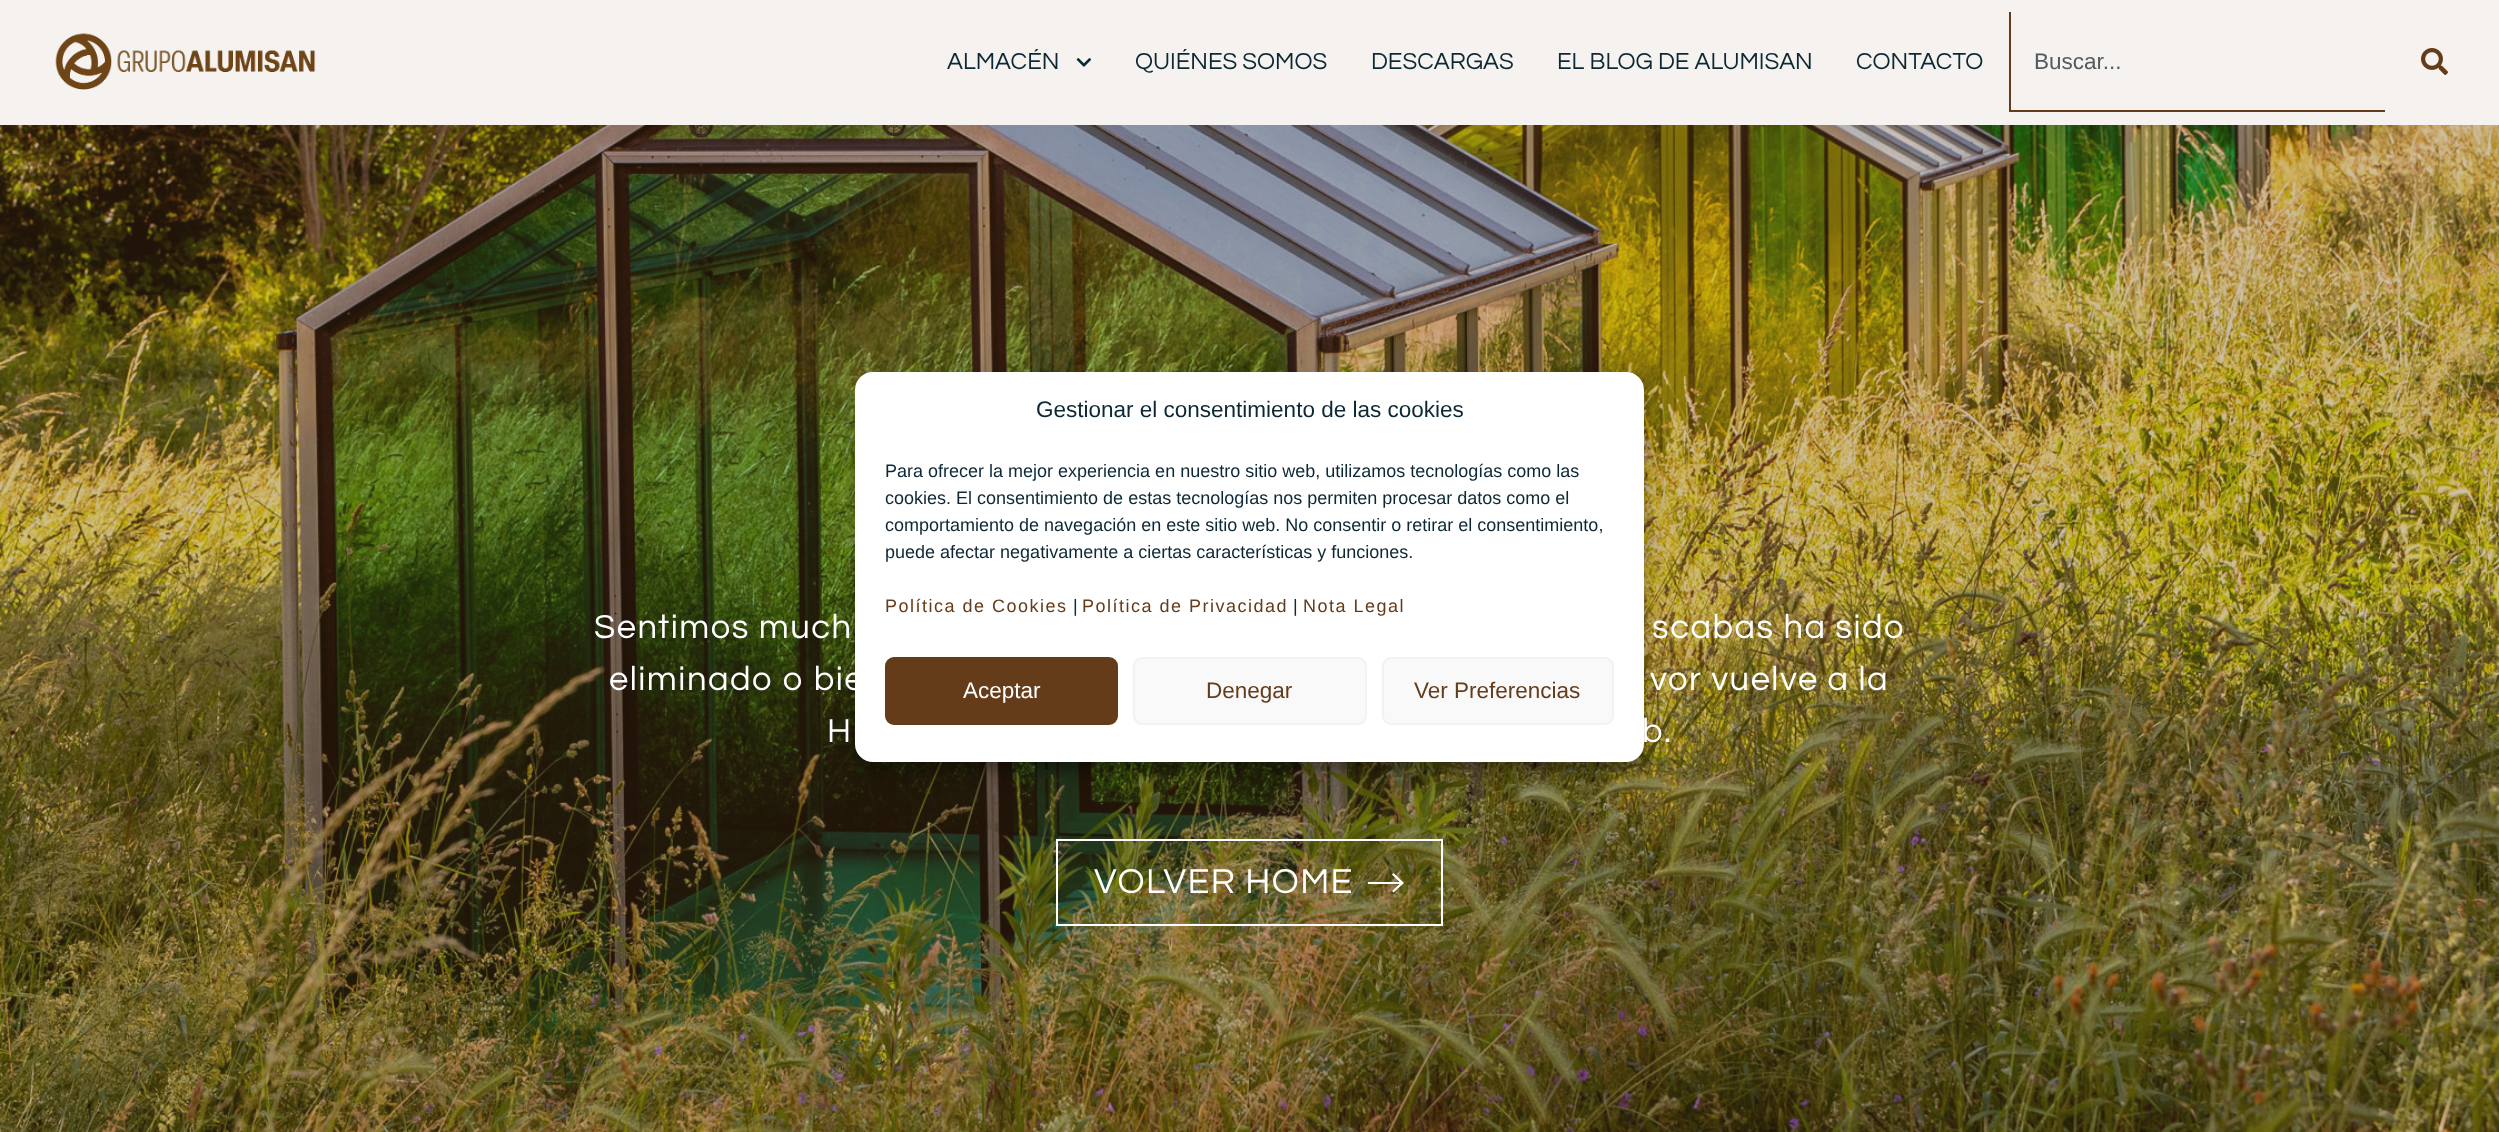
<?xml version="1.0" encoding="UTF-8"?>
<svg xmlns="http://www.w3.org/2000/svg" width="2499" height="1132">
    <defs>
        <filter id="blur1" x="-50%" y="-200%" width="200%" height="500%"><feGaussianBlur stdDeviation="4.5"/></filter>
        <filter id="blur2" x="-50%" y="-200%" width="200%" height="500%"><feGaussianBlur stdDeviation="15"/></filter>
    </defs>
    <rect width="100%" height="100%" fill="#FFFFFF"/>
    <rect x="0" y="0" width="2499" height="125" fill="#F5F2EF"/>
    <image x="55" y="33" width="261" height="57" href="img_01.png"/>
    <text x="947" y="69" font-family="Questrial" font-size="24" fill="#0C2835">ALMACÉN</text>
    <image x="1076" y="58" width="15" height="9" href="img_02.png"/>
    <text x="1135" y="69" font-family="Questrial" font-size="24" fill="#0C2835">QUIÉNES SOMOS</text>
    <text x="1371" y="69" font-family="Questrial" font-size="24" fill="#0C2835">DESCARGAS</text>
    <text x="1557" y="69" font-family="Questrial" font-size="24" fill="#0C2835">EL BLOG DE ALUMISAN</text>
    <text x="1856" y="69" font-family="Questrial" font-size="24" fill="#0C2835">CONTACTO</text>
    <rect x="2009" y="110" width="376" height="2" fill="#643C19"/>
    <rect x="2009" y="12" width="2" height="99" fill="#643C19"/>
    <text x="2034" y="69" font-family="Liberation Sans" font-size="22.5" fill="#515962">Buscar...</text>
    <image x="2421" y="48" width="27" height="27" href="img_03.png"/>
    <image x="0" y="125" width="2499" height="1007" href="img_04.png"/>
    <rect x="855" y="381" width="789" height="390" rx="18" fill="#000000" fill-opacity="0.23" filter="url(#blur1)"/>
    <rect x="855" y="387" width="789" height="390" rx="18" fill="#000000" fill-opacity="0.19" filter="url(#blur2)"/>
    <rect x="855" y="372" width="789" height="390" rx="18" fill="#FFFFFF"/>
    <text x="1036" y="417" font-family="Liberation Sans" font-size="22.5" fill="#0C2835">Gestionar el consentimiento de las cookies</text>
    <text font-family="Liberation Sans" font-size="18" fill="#0C2835">
        <tspan x="885" y="477">Para ofrecer la mejor experiencia en nuestro sitio web, utilizamos tecnologías como las</tspan>
        <tspan x="885" y="504">cookies. El consentimiento de estas tecnologías nos permiten procesar datos como el</tspan>
        <tspan x="885" y="531">comportamiento de navegación en este sitio web. No consentir o retirar el consentimiento,</tspan>
        <tspan x="885" y="558">puede afectar negativamente a ciertas características y funciones.</tspan>
    </text>
    <text x="885" y="612" font-family="Liberation Sans" font-size="18" letter-spacing="1.5" fill="#643C19">Política de Cookies</text>
    <text x="1073" y="612" font-family="Liberation Sans" font-size="18" fill="#0C2835">|</text>
    <text x="1082" y="612" font-family="Liberation Sans" font-size="18" letter-spacing="1.5" fill="#643C19">Política de Privacidad</text>
    <text x="1293" y="612" font-family="Liberation Sans" font-size="18" fill="#0C2835">|</text>
    <text x="1303" y="612" font-family="Liberation Sans" font-size="18" letter-spacing="1.5" fill="#643C19">Nota Legal</text>
    <rect x="886" y="658" width="231" height="66" rx="8" fill="#643C19" stroke="#643C19" stroke-width="2"/>
    <text x="963" y="698" font-family="Liberation Sans" font-size="22.5" fill="#FFFFFF">Aceptar</text>
    <rect x="1134" y="658" width="232" height="66" rx="8" fill="#F9F9F9" stroke="#F2F2F2" stroke-width="2"/>
    <text x="1206" y="698" font-family="Liberation Sans" font-size="22.5" fill="#643C19">Denegar</text>
    <rect x="1383" y="658" width="230" height="66" rx="8" fill="#F9F9F9" stroke="#F2F2F2" stroke-width="2"/>
    <text x="1414" y="698" font-family="Liberation Sans" font-size="22.5" fill="#643C19">Ver Preferencias</text>
    <text x="594" y="638" font-family="Questrial" font-size="34.5" letter-spacing="1.5" fill="#FFFFFF">Sentimos much</text>
    <text x="1652" y="638" font-family="Questrial" font-size="34.5" letter-spacing="1.5" fill="#FFFFFF">scabas ha sido</text>
    <text x="609" y="690" font-family="Questrial" font-size="34.5" letter-spacing="1.5" fill="#FFFFFF">eliminado o bie</text>
    <text x="1650" y="690" font-family="Questrial" font-size="34.5" letter-spacing="1.5" fill="#FFFFFF">vor vuelve a la</text>
    <text x="827" y="742" font-family="Questrial" font-size="34.5" letter-spacing="1.5" fill="#FFFFFF">H</text>
    <text x="1642" y="742" font-family="Questrial" font-size="34.5" letter-spacing="1.5" fill="#FFFFFF">b.</text>
    <rect x="1057" y="840" width="385" height="85" fill="none" stroke="#FFFFFF" stroke-width="2"/>
    <text x="1094" y="893" font-family="Questrial" font-size="36" letter-spacing="1.4" fill="#FFFFFF">VOLVER HOME</text>
    <path d="M 1403 882 L 1393.5 873 L 1392 874.5 L 1399.5 882 H 1368 V 884 H 1399.5 L 1392 891 L 1393.5 892.5 L 1404 883 Z" fill="#FFFFFF"/>
</svg>
